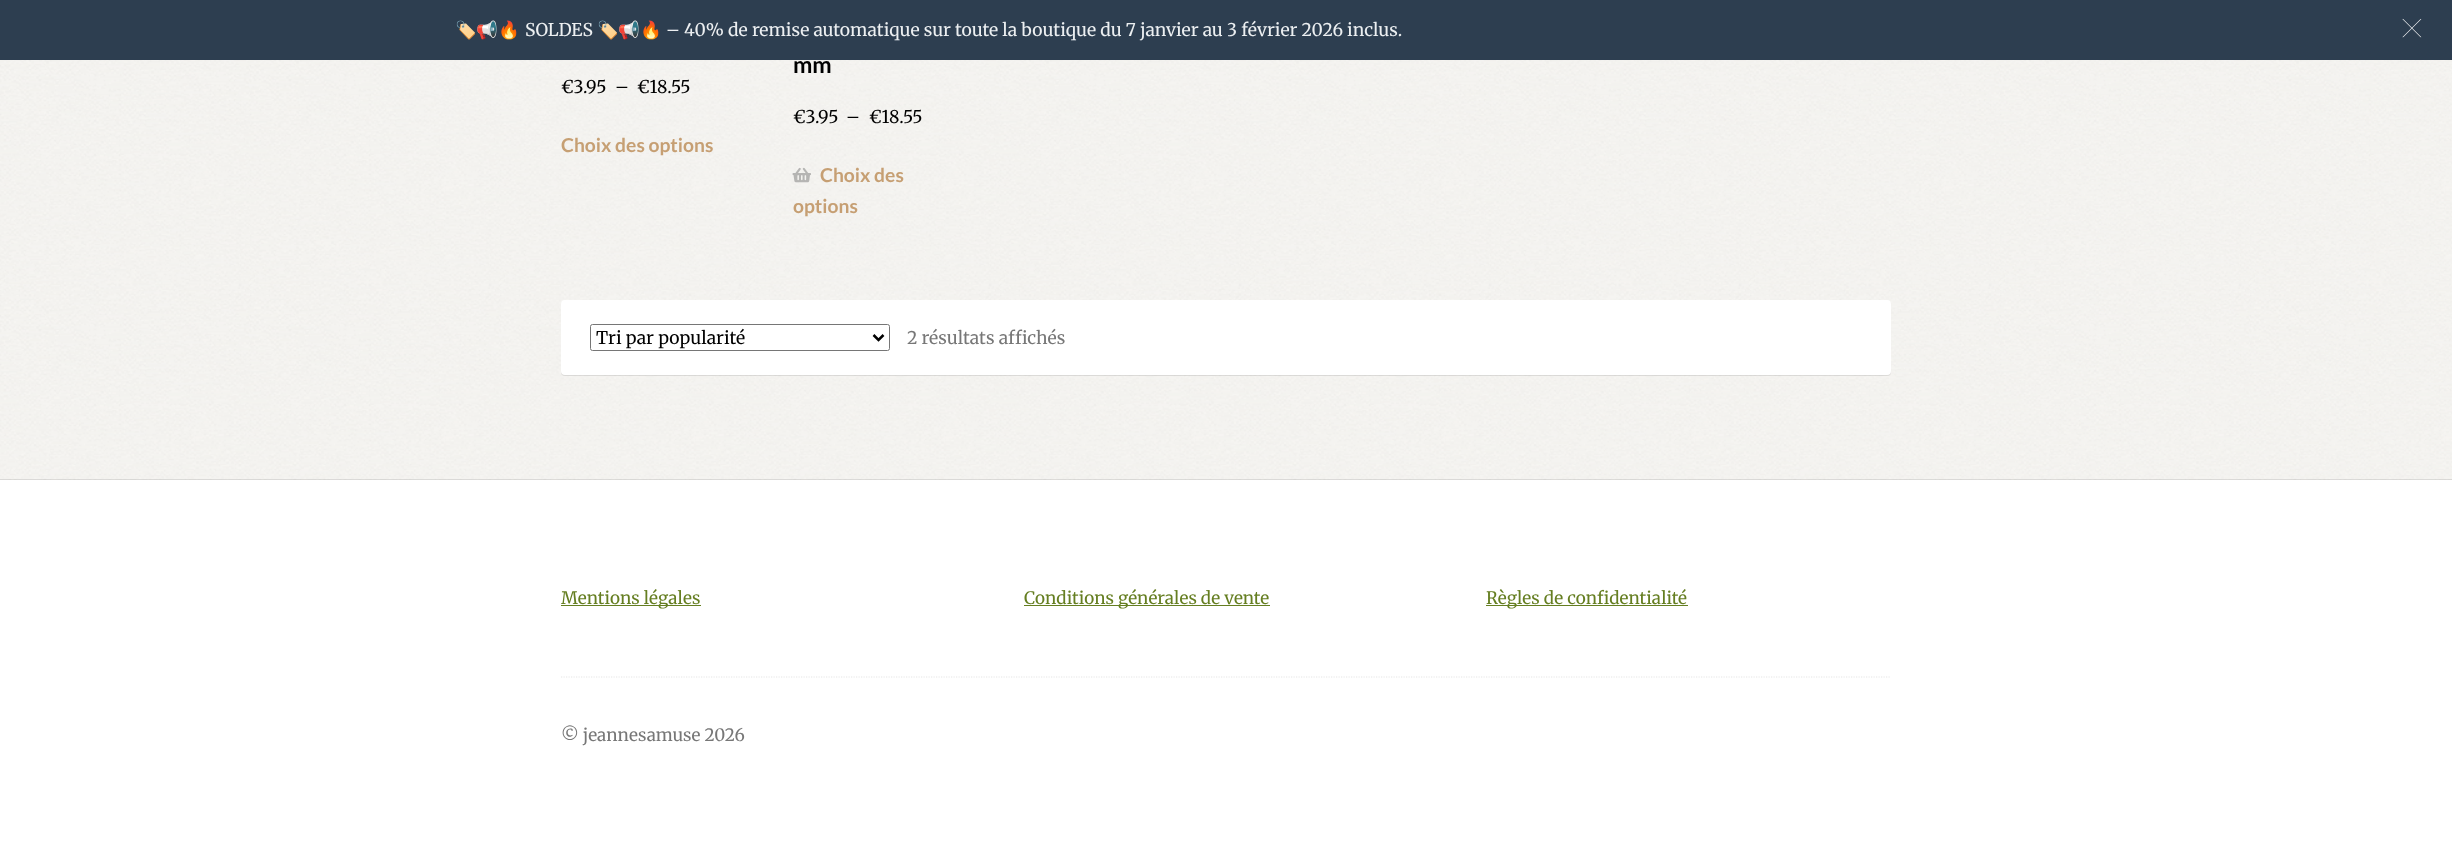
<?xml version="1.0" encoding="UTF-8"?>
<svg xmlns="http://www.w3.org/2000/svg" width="2452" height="868">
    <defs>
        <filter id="blur1" x="-50%" y="-200%" width="200%" height="500%"><feGaussianBlur stdDeviation="0.5"/></filter>
    </defs>
    <rect width="100%" height="100%" fill="#FFFFFF"/>
    <image x="0" y="60" width="2452" height="420" href="img_01.png"/>
    <rect x="0" y="0" width="2452" height="60" fill="#2D3E50"/>
    <text x="455" y="36" font-family="Noto Color Emoji" font-size="17.5" fill="#ECEFF1">🏷️📢🔥</text>
    <text x="525" y="36" font-family="Merriweather" font-size="17.5" fill="#ECEFF1">SOLDES</text>
    <text x="597" y="36" font-family="Noto Color Emoji" font-size="17.5" fill="#ECEFF1">🏷️📢🔥</text>
    <text x="666" y="36" font-family="Merriweather" font-size="17.5" fill="#ECEFF1">– 40% de remise automatique sur toute la boutique du 7 janvier au 3 février 2026 inclus.</text>
    <image x="2402" y="18" width="20" height="20" href="img_02.png"/>
    <text x="561" y="93" font-family="Merriweather" font-size="17.5" fill="#000000">€3.95</text>
    <text x="615" y="93" font-family="Merriweather" font-size="17.5" fill="#000000">–</text>
    <text x="637" y="93" font-family="Merriweather" font-size="17.5" fill="#000000">€18.55</text>
    <text x="561" y="152" font-family="Lato" font-size="19.25" font-weight="700" fill="#C69F73">Choix des options</text>
    <text x="793" y="73" font-family="Lato" font-size="23" font-weight="700" fill="#000000">mm</text>
    <text x="793" y="123" font-family="Merriweather" font-size="17.5" fill="#000000">€3.95</text>
    <text x="846" y="123" font-family="Merriweather" font-size="17.5" fill="#000000">–</text>
    <text x="869" y="123" font-family="Merriweather" font-size="17.5" fill="#000000">€18.55</text>
    <image x="792" y="167" width="19" height="16" href="img_03.png"/>
    <text x="820" y="182" font-family="Lato" font-size="19.25" font-weight="700" fill="#C69F73">Choix des</text>
    <text x="793" y="213" font-family="Lato" font-size="19.25" font-weight="700" fill="#C69F73">options</text>
    <rect x="561" y="301" width="1330" height="75" rx="4" fill="#000000" fill-opacity="0.1" filter="url(#blur1)"/>
    <rect x="561" y="300" width="1330" height="75" rx="4" fill="#FFFFFF"/>
    <rect x="590.5" y="324.5" width="299" height="26" rx="2" fill="none" stroke="#767676"/>
    <path d="M 873.5 335 L 878.5 340 L 883.5 335" fill="none" stroke="#000000" stroke-width="2.5"/>
    <text x="596" y="344" font-family="Merriweather" font-size="17.5" fill="#000000">Tri par popularité</text>
    <text x="907" y="344" font-family="Merriweather" font-size="17.5" fill="#777777">2 résultats affichés</text>
    <rect x="0" y="479" width="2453" height="389" fill="#000000" fill-opacity="0.1" filter="url(#blur1)"/>
    <rect x="0" y="480" width="2452" height="388" fill="#FFFFFF"/>
    <rect x="561" y="605" width="140" height="1" fill="#657E21"/>
    <text x="561" y="604" font-family="Merriweather" font-size="17.1" fill="#657E21">Mentions légales</text>
    <rect x="1024" y="605" width="246" height="1" fill="#657E21"/>
    <text x="1024" y="604" font-family="Merriweather" font-size="17.1" fill="#657E21">Conditions générales de vente</text>
    <rect x="1486" y="605" width="202" height="1" fill="#657E21"/>
    <text x="1486" y="604" font-family="Merriweather" font-size="17.1" fill="#657E21">Règles de confidentialité</text>
    <path d="M 561 677 H 1891" fill="none" stroke="#E6E6E6" stroke-width="1.2" stroke-dasharray="1.25 1.25"/>
    <text x="561" y="741" font-family="Merriweather" font-size="17.1" fill="#777777">© jeannesamuse 2026</text>
</svg>
